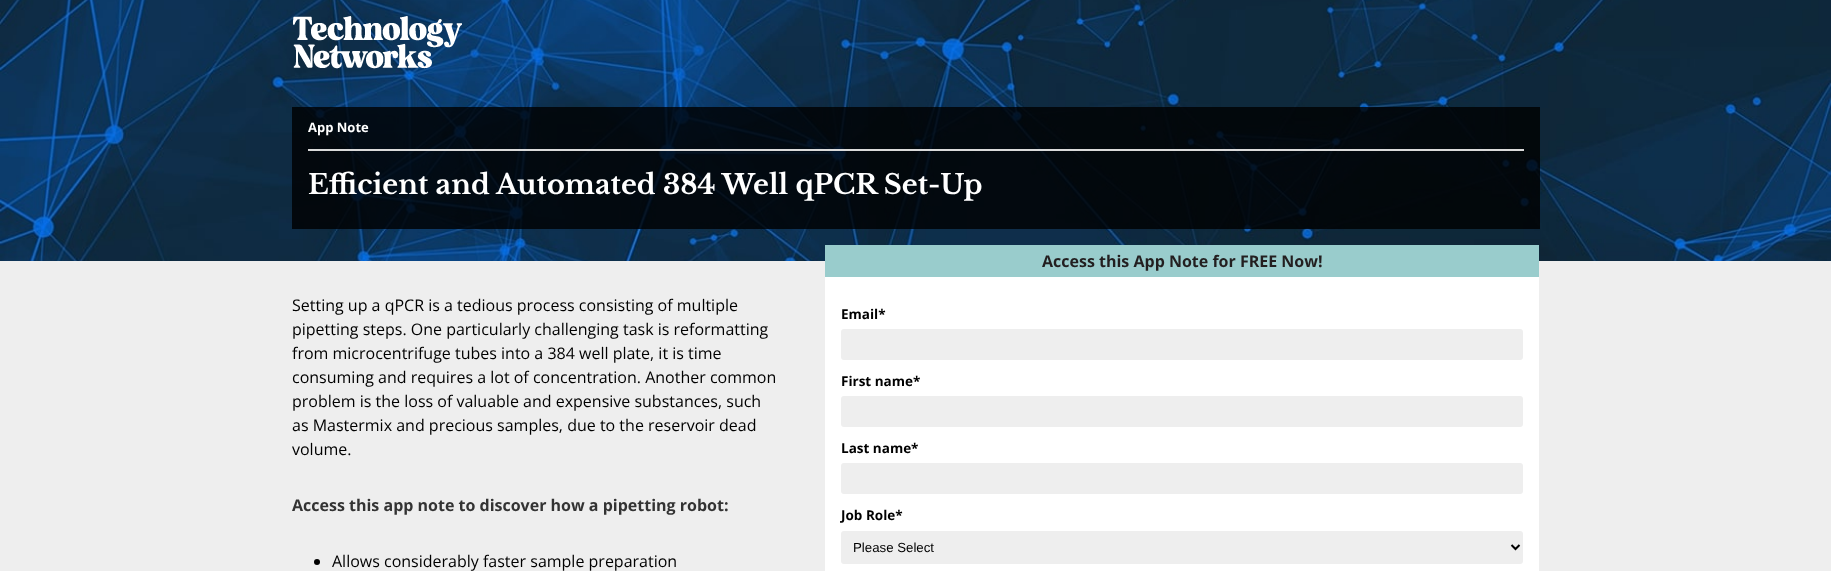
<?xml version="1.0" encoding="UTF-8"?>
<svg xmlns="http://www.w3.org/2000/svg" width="1831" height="571">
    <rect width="100%" height="100%" fill="#FFFFFF"/>
    <image x="0" y="0" width="1831" height="261" href="img_01.png"/>
    <image x="293" y="16" width="169" height="53" href="img_02.png"/>
    <rect x="292" y="107" width="1248" height="122" fill="#000000" fill-opacity="0.8"/>
    <rect x="308" y="149" width="1216" height="2" fill="#DADADA"/>
    <text x="308" y="132" font-family="Open Sans" font-size="13" font-weight="700" fill="#FFFFFF">App Note</text>
    <text x="308" y="194" font-family="Libre Baskerville" font-size="27.2" font-weight="700" fill="#FFFFFF">Efficient and Automated 384 Well qPCR Set-Up</text>
    <rect x="0" y="261" width="1831" height="310" fill="#EEEEEE"/>
    <text font-family="Open Sans" font-size="16" fill="#000000">
        <tspan x="292" y="311">Setting up a qPCR is a tedious process consisting of multiple</tspan>
        <tspan x="292" y="335">pipetting steps. One particularly challenging task is reformatting</tspan>
        <tspan x="292" y="359">from microcentrifuge tubes into a 384 well plate, it is time</tspan>
        <tspan x="292" y="383">consuming and requires a lot of concentration. Another common</tspan>
        <tspan x="292" y="407">problem is the loss of valuable and expensive substances, such</tspan>
        <tspan x="292" y="431">as Mastermix and precious samples, due to the reservoir dead</tspan>
        <tspan x="292" y="455">volume.</tspan>
    </text>
    <text x="292" y="511" font-family="Open Sans" font-size="16" font-weight="700" fill="#333333">Access this app note to discover how a pipetting robot:</text>
    <circle cx="317" cy="562" r="3" fill="#000000"/>
    <text x="332" y="567" font-family="Open Sans" font-size="16" fill="#000000">Allows considerably faster sample preparation</text>
    <rect x="825" y="245" width="714" height="32" fill="#99CCCC"/>
    <text x="1042" y="267" font-family="Open Sans" font-size="16" font-weight="700" fill="#231F20">Access this App Note for FREE Now!</text>
    <rect x="825" y="277" width="714" height="294" fill="#FFFFFF"/>
    <text x="841" y="319" font-family="Open Sans" font-size="13.5" font-weight="700" fill="#000000">Email*</text>
    <rect x="841" y="329" width="682" height="31" rx="3" fill="#EEEEEE"/>
    <text x="841" y="386" font-family="Open Sans" font-size="13.5" font-weight="700" fill="#000000">First name*</text>
    <rect x="841" y="396" width="682" height="31" rx="3" fill="#EEEEEE"/>
    <text x="841" y="453" font-family="Open Sans" font-size="13.5" font-weight="700" fill="#000000">Last name*</text>
    <rect x="841" y="463" width="682" height="31" rx="3" fill="#EEEEEE"/>
    <text x="841" y="520" font-family="Open Sans" font-size="13.5" font-weight="700" fill="#000000">Job Role*</text>
    <rect x="841" y="531" width="682" height="33" rx="3" fill="#EEEEEE"/>
    <path d="M 1511.5 545 L 1515.5 549 L 1519.5 545" fill="none" stroke="#000000" stroke-width="2"/>
    <text x="853" y="552" font-family="Liberation Sans" font-size="13.25" fill="#000000">Please Select</text>
</svg>
